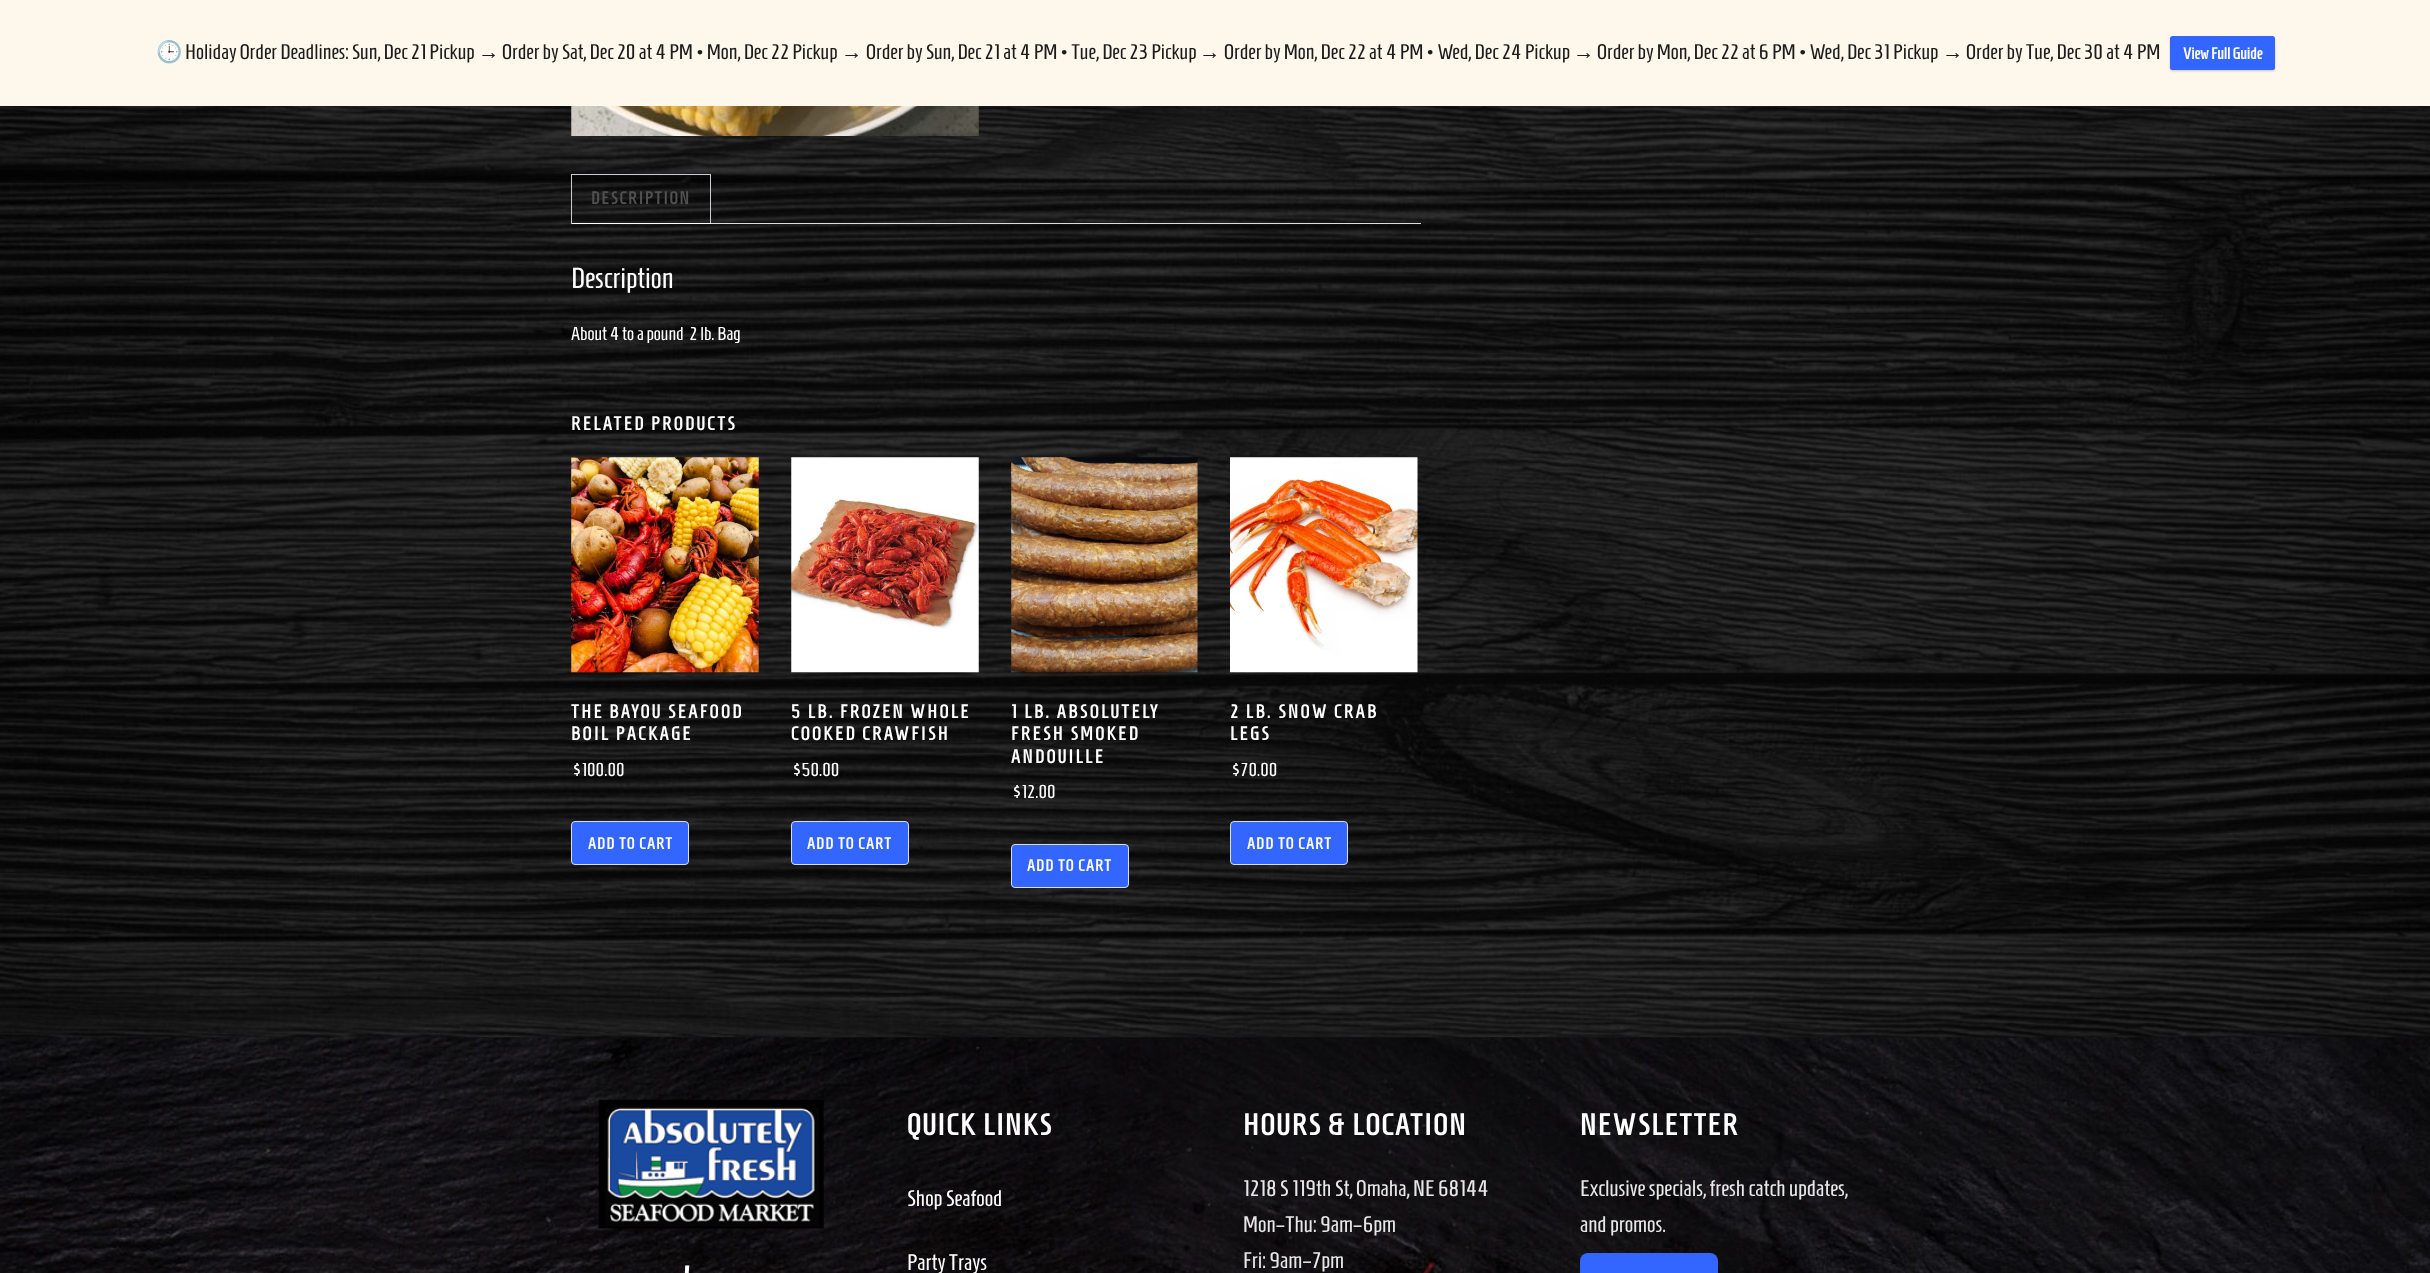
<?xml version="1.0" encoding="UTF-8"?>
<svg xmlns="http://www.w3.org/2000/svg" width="2430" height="1273">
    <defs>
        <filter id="blur1" x="-50%" y="-200%" width="200%" height="500%"><feGaussianBlur stdDeviation="1"/></filter>
    </defs>
    <rect width="100%" height="100%" fill="#FFFFFF"/>
    <rect x="0" y="0" width="2430" height="106" fill="#FEF7EC"/>
    <text x="156" y="59" font-family="Noto Color Emoji" font-size="21.25" fill="#1C1C1C">🕒</text>
    <text x="185" y="59" font-family="Homenaje" font-size="21.25" fill="#1C1C1C">Holiday Order Deadlines: Sun, Dec 21 Pickup</text>
    <text x="478" y="59" font-family="Liberation Serif" font-size="21.25" fill="#1C1C1C">→</text>
    <text x="502" y="59" font-family="Homenaje" font-size="21.25" fill="#1C1C1C">Order by Sat, Dec 20 at 4 PM • Mon, Dec 22 Pickup</text>
    <text x="841" y="59" font-family="Liberation Serif" font-size="21.25" fill="#1C1C1C">→</text>
    <text x="866" y="59" font-family="Homenaje" font-size="21.25" fill="#1C1C1C">Order by Sun, Dec 21 at 4 PM • Tue, Dec 23 Pickup</text>
    <text x="1199" y="59" font-family="Liberation Serif" font-size="21.25" fill="#1C1C1C">→</text>
    <text x="1224" y="59" font-family="Homenaje" font-size="21.25" fill="#1C1C1C">Order by Mon, Dec 22 at 4 PM • Wed, Dec 24 Pickup</text>
    <text x="1573" y="59" font-family="Liberation Serif" font-size="21.25" fill="#1C1C1C">→</text>
    <text x="1597" y="59" font-family="Homenaje" font-size="21.25" fill="#1C1C1C">Order by Mon, Dec 22 at 6 PM • Wed, Dec 31 Pickup</text>
    <text x="1942" y="59" font-family="Liberation Serif" font-size="21.25" fill="#1C1C1C">→</text>
    <text x="1966" y="59" font-family="Homenaje" font-size="21.25" fill="#1C1C1C">Order by Tue, Dec 30 at 4 PM</text>
    <rect x="2170" y="38" width="105" height="33" rx="2.5" fill="#000000" fill-opacity="0.2" filter="url(#blur1)"/>
    <rect x="2170" y="36" width="105" height="34" rx="2.5" fill="#3366FF"/>
    <text x="2183" y="59" font-family="Homenaje" font-size="16.25" font-weight="700" fill="#FFFFFF">View Full Guide</text>
    <image x="0" y="106" width="2430" height="932" href="img_01.png"/>
    <image x="571" y="106" width="408" height="30" href="img_02.png"/>
    <rect x="571" y="174" width="140" height="1" fill="#CFC8D8"/>
    <rect x="710" y="174" width="1" height="50" fill="#CFC8D8"/>
    <rect x="571" y="223" width="140" height="1" fill="#FFFFFF"/>
    <rect x="571" y="174" width="1" height="50" fill="#CFC8D8"/>
    <text x="591" y="204" font-family="Homenaje" font-size="17.5" font-weight="700" letter-spacing="1.9" fill="#515151">DESCRIPTION</text>
    <rect x="711" y="223" width="710" height="1" fill="#DDDDDD"/>
    <text x="571" y="288" font-family="Homenaje" font-size="29" fill="#FFFFFF">Description</text>
    <text x="571" y="340" font-family="Homenaje" font-size="18.75" fill="#FFFFFF" xml:space="preserve">About 4 to a pound  2 lb. Bag</text>
    <text x="571" y="430" font-family="Homenaje" font-size="18.75" font-weight="700" letter-spacing="2.5" fill="#FFFFFF">RELATED PRODUCTS</text>
    <image x="571" y="457" width="188" height="216" href="img_03.png"/>
    <text font-family="Homenaje" font-size="18.75" font-weight="700" letter-spacing="2.5" fill="#FFFFFF">
        <tspan x="571" y="718">THE BAYOU SEAFOOD</tspan>
        <tspan x="571" y="740">BOIL PACKAGE</tspan>
    </text>
    <text x="571" y="776" font-family="Homenaje" font-size="18.75" fill="#FFFFFF">$100.00</text>
    <rect x="571.5" y="821.5" width="117" height="43" rx="3.5" fill="#3366FF" stroke="#DDDDDD"/>
    <text x="588" y="849" font-family="Homenaje" font-size="16.25" font-weight="700" letter-spacing="1.25" fill="#FFFFFF">ADD TO CART</text>
    <image x="791" y="457" width="188" height="216" href="img_04.png"/>
    <text font-family="Homenaje" font-size="18.75" font-weight="700" letter-spacing="2.5" fill="#FFFFFF">
        <tspan x="791" y="718">5 LB. FROZEN WHOLE</tspan>
        <tspan x="791" y="740">COOKED CRAWFISH</tspan>
    </text>
    <text x="791" y="776" font-family="Homenaje" font-size="18.75" fill="#FFFFFF">$50.00</text>
    <rect x="791.5" y="821.5" width="117" height="43" rx="3.5" fill="#3366FF" stroke="#DDDDDD"/>
    <text x="807" y="849" font-family="Homenaje" font-size="16.25" font-weight="700" letter-spacing="1.25" fill="#FFFFFF">ADD TO CART</text>
    <image x="1011" y="457" width="187" height="216" href="img_05.png"/>
    <text font-family="Homenaje" font-size="18.75" font-weight="700" letter-spacing="2.5" fill="#FFFFFF">
        <tspan x="1011" y="718">1 LB. ABSOLUTELY</tspan>
        <tspan x="1011" y="740">FRESH SMOKED</tspan>
        <tspan x="1011" y="763">ANDOUILLE</tspan>
    </text>
    <text x="1011" y="798" font-family="Homenaje" font-size="18.75" fill="#FFFFFF">$12.00</text>
    <rect x="1011.5" y="844.5" width="117" height="43" rx="3.5" fill="#3366FF" stroke="#DDDDDD"/>
    <text x="1027" y="871" font-family="Homenaje" font-size="16.25" font-weight="700" letter-spacing="1.25" fill="#FFFFFF">ADD TO CART</text>
    <image x="1230" y="457" width="188" height="216" href="img_06.png"/>
    <text font-family="Homenaje" font-size="18.75" font-weight="700" letter-spacing="2.5" fill="#FFFFFF">
        <tspan x="1230" y="718">2 LB. SNOW CRAB</tspan>
        <tspan x="1230" y="740">LEGS</tspan>
    </text>
    <text x="1230" y="776" font-family="Homenaje" font-size="18.75" fill="#FFFFFF">$70.00</text>
    <rect x="1230.5" y="821.5" width="117" height="43" rx="3.5" fill="#3366FF" stroke="#DDDDDD"/>
    <text x="1247" y="849" font-family="Homenaje" font-size="16.25" font-weight="700" letter-spacing="1.25" fill="#FFFFFF">ADD TO CART</text>
    <image x="0" y="1037" width="2430" height="236" href="img_07.png"/>
    <text x="907" y="1135" font-family="Homenaje" font-size="30" font-weight="700" letter-spacing="1.9" fill="#FFFFFF">QUICK LINKS</text>
    <text x="907" y="1206" font-family="Homenaje" font-size="22.5" fill="#FFFFFF">Shop Seafood</text>
    <text x="907" y="1270" font-family="Homenaje" font-size="22.5" fill="#FFFFFF">Party Trays</text>
    <text x="1243" y="1135" font-family="Homenaje" font-size="30" font-weight="700" letter-spacing="1.9" fill="#FFFFFF">HOURS &amp; LOCATION</text>
    <text font-family="Homenaje" font-size="22.5" fill="#E7E7E7">
        <tspan x="1243" y="1196">1218 S 119th St, Omaha, NE 68144</tspan>
        <tspan x="1243" y="1232">Mon–Thu: 9am–6pm</tspan>
        <tspan x="1243" y="1268">Fri: 9am–7pm</tspan>
    </text>
    <text x="1580" y="1135" font-family="Homenaje" font-size="30" font-weight="700" letter-spacing="1.9" fill="#FFFFFF">NEWSLETTER</text>
    <text font-family="Homenaje" font-size="22.5" fill="#E7E7E7">
        <tspan x="1580" y="1196">Exclusive specials, fresh catch updates,</tspan>
        <tspan x="1580" y="1232">and promos.</tspan>
    </text>
    <rect x="1580" y="1253" width="138" height="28" rx="8" fill="#3366FF"/>
    <image x="598" y="1099" width="226" height="130" href="img_08.png"/>
    <text x="684" y="1291" font-family="Homenaje" font-size="35" font-weight="700" letter-spacing="1.9" fill="#FFFFFF">’</text>
</svg>
